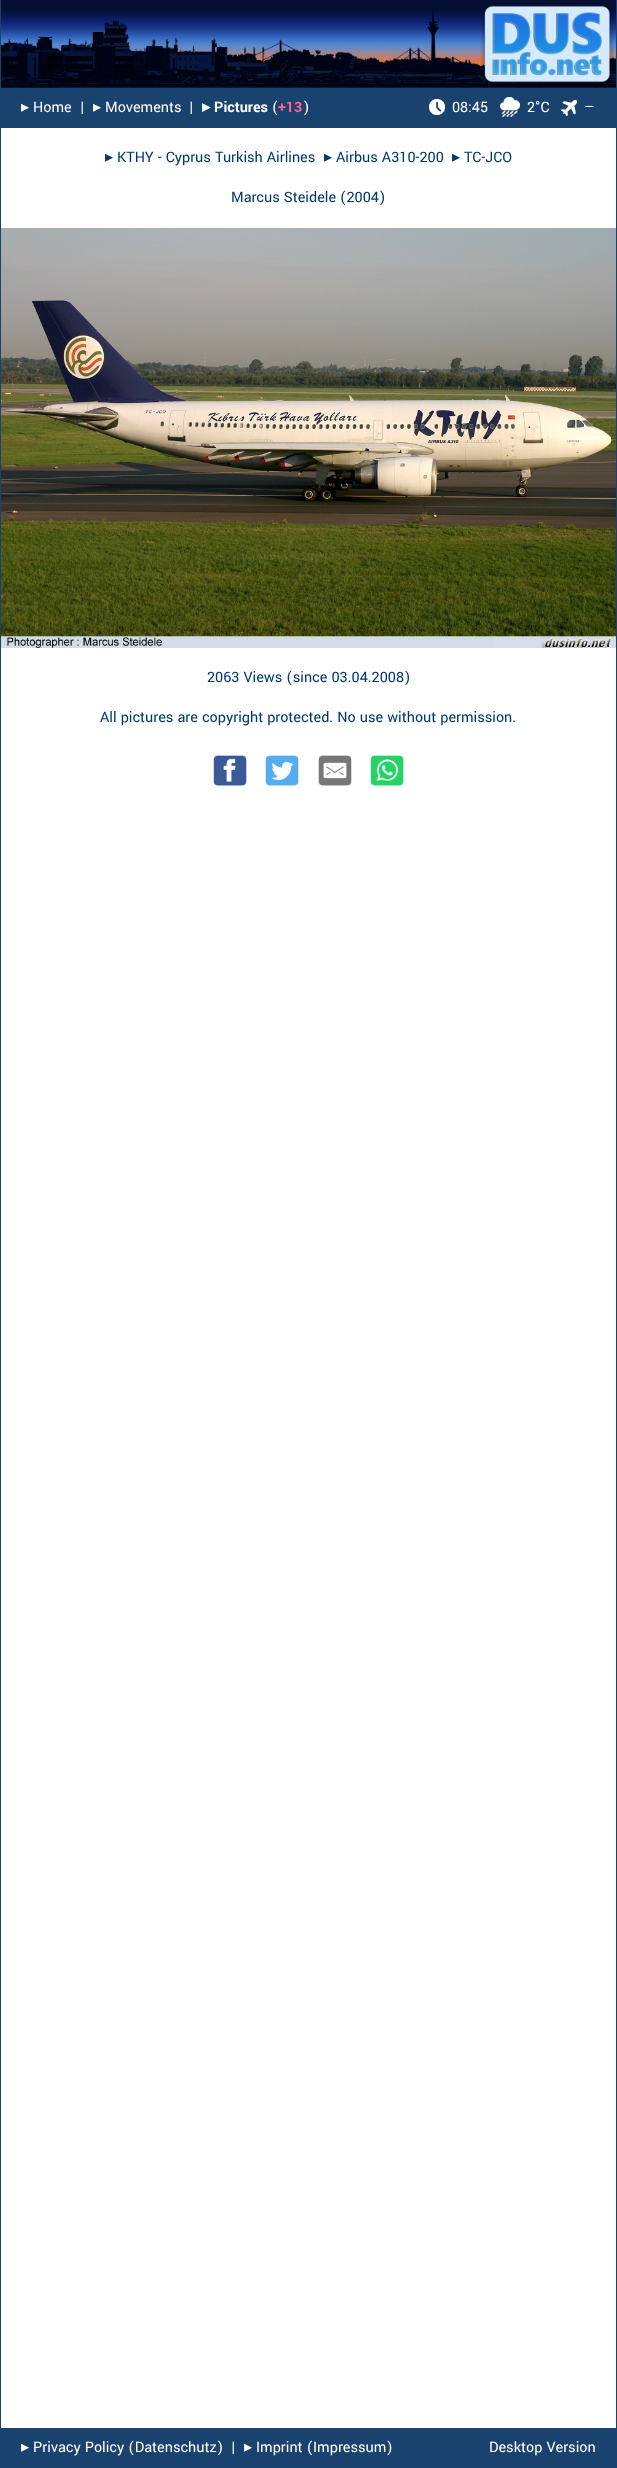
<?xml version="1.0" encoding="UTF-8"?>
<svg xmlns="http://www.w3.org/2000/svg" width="617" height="2468">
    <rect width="100%" height="100%" fill="#FFFFFF"/>
    <rect x="616" y="0" width="1" height="2468" fill="#1A436B"/>
    <rect x="0" y="0" width="1" height="2468" fill="#1A436B"/>
    <image x="1" y="0" width="615" height="88" href="img_01.png"/>
    <rect x="1" y="88" width="615" height="40" fill="#19426E"/>
    <text x="21" y="112" font-family="DejaVu Sans" font-size="16" fill="#FFFFFF">▸︎</text>
    <text x="33" y="112" font-family="Yantramanav" font-size="16" fill="#FFFFFF">Home</text>
    <text x="80" y="112" font-family="Yantramanav" font-size="16" fill="#FFFFFF">|</text>
    <text x="93" y="112" font-family="DejaVu Sans" font-size="16" fill="#FFFFFF">▸︎</text>
    <text x="105" y="112" font-family="Yantramanav" font-size="16" fill="#FFFFFF">Movements</text>
    <text x="189" y="112" font-family="Yantramanav" font-size="16" fill="#FFFFFF">|</text>
    <text x="202" y="112" font-family="DejaVu Sans" font-size="16" font-weight="700" fill="#FFFFFF">▸︎</text>
    <text x="214" y="112" font-family="Yantramanav" font-size="16" font-weight="700" fill="#FFFFFF">Pictures</text>
    <text x="272" y="112" font-family="Yantramanav" font-size="16" fill="#FFFFFF">(</text>
    <text x="278" y="112" font-family="Yantramanav" font-size="16" font-weight="700" fill="#FF668E">+13</text>
    <text x="303" y="112" font-family="Yantramanav" font-size="16" fill="#FFFFFF">)</text>
    <image x="429" y="99" width="16" height="16" href="img_02.png"/>
    <text x="452" y="112" font-family="Yantramanav" font-size="16" fill="#FFFFFF">08:45</text>
    <image x="500" y="97" width="20" height="20" href="img_03.png"/>
    <text x="527" y="112" font-family="Yantramanav" font-size="16" fill="#FFFFFF">2°C</text>
    <image x="561" y="100" width="16" height="16" href="img_04.png"/>
    <text x="584" y="112" font-family="Yantramanav" font-size="16" fill="#FFFFFF">—</text>
    <text x="105" y="162" font-family="DejaVu Sans" font-size="16" fill="#003770">▸︎</text>
    <text x="117" y="162" font-family="Yantramanav" font-size="16" fill="#003770">KTHY - Cyprus Turkish Airlines</text>
    <text x="324" y="162" font-family="DejaVu Sans" font-size="16" fill="#003770">▸︎</text>
    <text x="336" y="162" font-family="Yantramanav" font-size="16" fill="#003770">Airbus A310-200</text>
    <text x="452" y="162" font-family="DejaVu Sans" font-size="16" fill="#003770">▸︎</text>
    <text x="464" y="162" font-family="Yantramanav" font-size="16" fill="#003770">TC-JCO</text>
    <text x="231" y="202" font-family="Yantramanav" font-size="16" fill="#003770">Marcus Steidele (2004)</text>
    <image x="1" y="228" width="615" height="420" href="img_05.png"/>
    <text x="207" y="682" font-family="Yantramanav" font-size="16" fill="#003770">2063 Views (since 03.04.2008)</text>
    <text x="100" y="722" font-family="Yantramanav" font-size="16" fill="#003770">All pictures are copyright protected. No use without permission.</text>
    <image x="213" y="755" width="34" height="31" href="img_06.png"/>
    <image x="265" y="755" width="34" height="31" href="img_07.png"/>
    <image x="318" y="755" width="34" height="31" href="img_08.png"/>
    <image x="370" y="755" width="34" height="31" href="img_09.png"/>
    <rect x="1" y="2428" width="615" height="40" fill="#19426E"/>
    <text x="21" y="2452" font-family="DejaVu Sans" font-size="16" fill="#FFFFFF">▸︎</text>
    <text x="33" y="2452" font-family="Yantramanav" font-size="16" fill="#FFFFFF">Privacy Policy (Datenschutz)</text>
    <text x="231" y="2452" font-family="Yantramanav" font-size="16" fill="#FFFFFF">|</text>
    <text x="244" y="2452" font-family="DejaVu Sans" font-size="16" fill="#FFFFFF">▸︎</text>
    <text x="256" y="2452" font-family="Yantramanav" font-size="16" fill="#FFFFFF">Imprint (Impressum)</text>
    <text x="489" y="2452" font-family="Yantramanav" font-size="16" fill="#FFFFFF">Desktop Version</text>
</svg>
